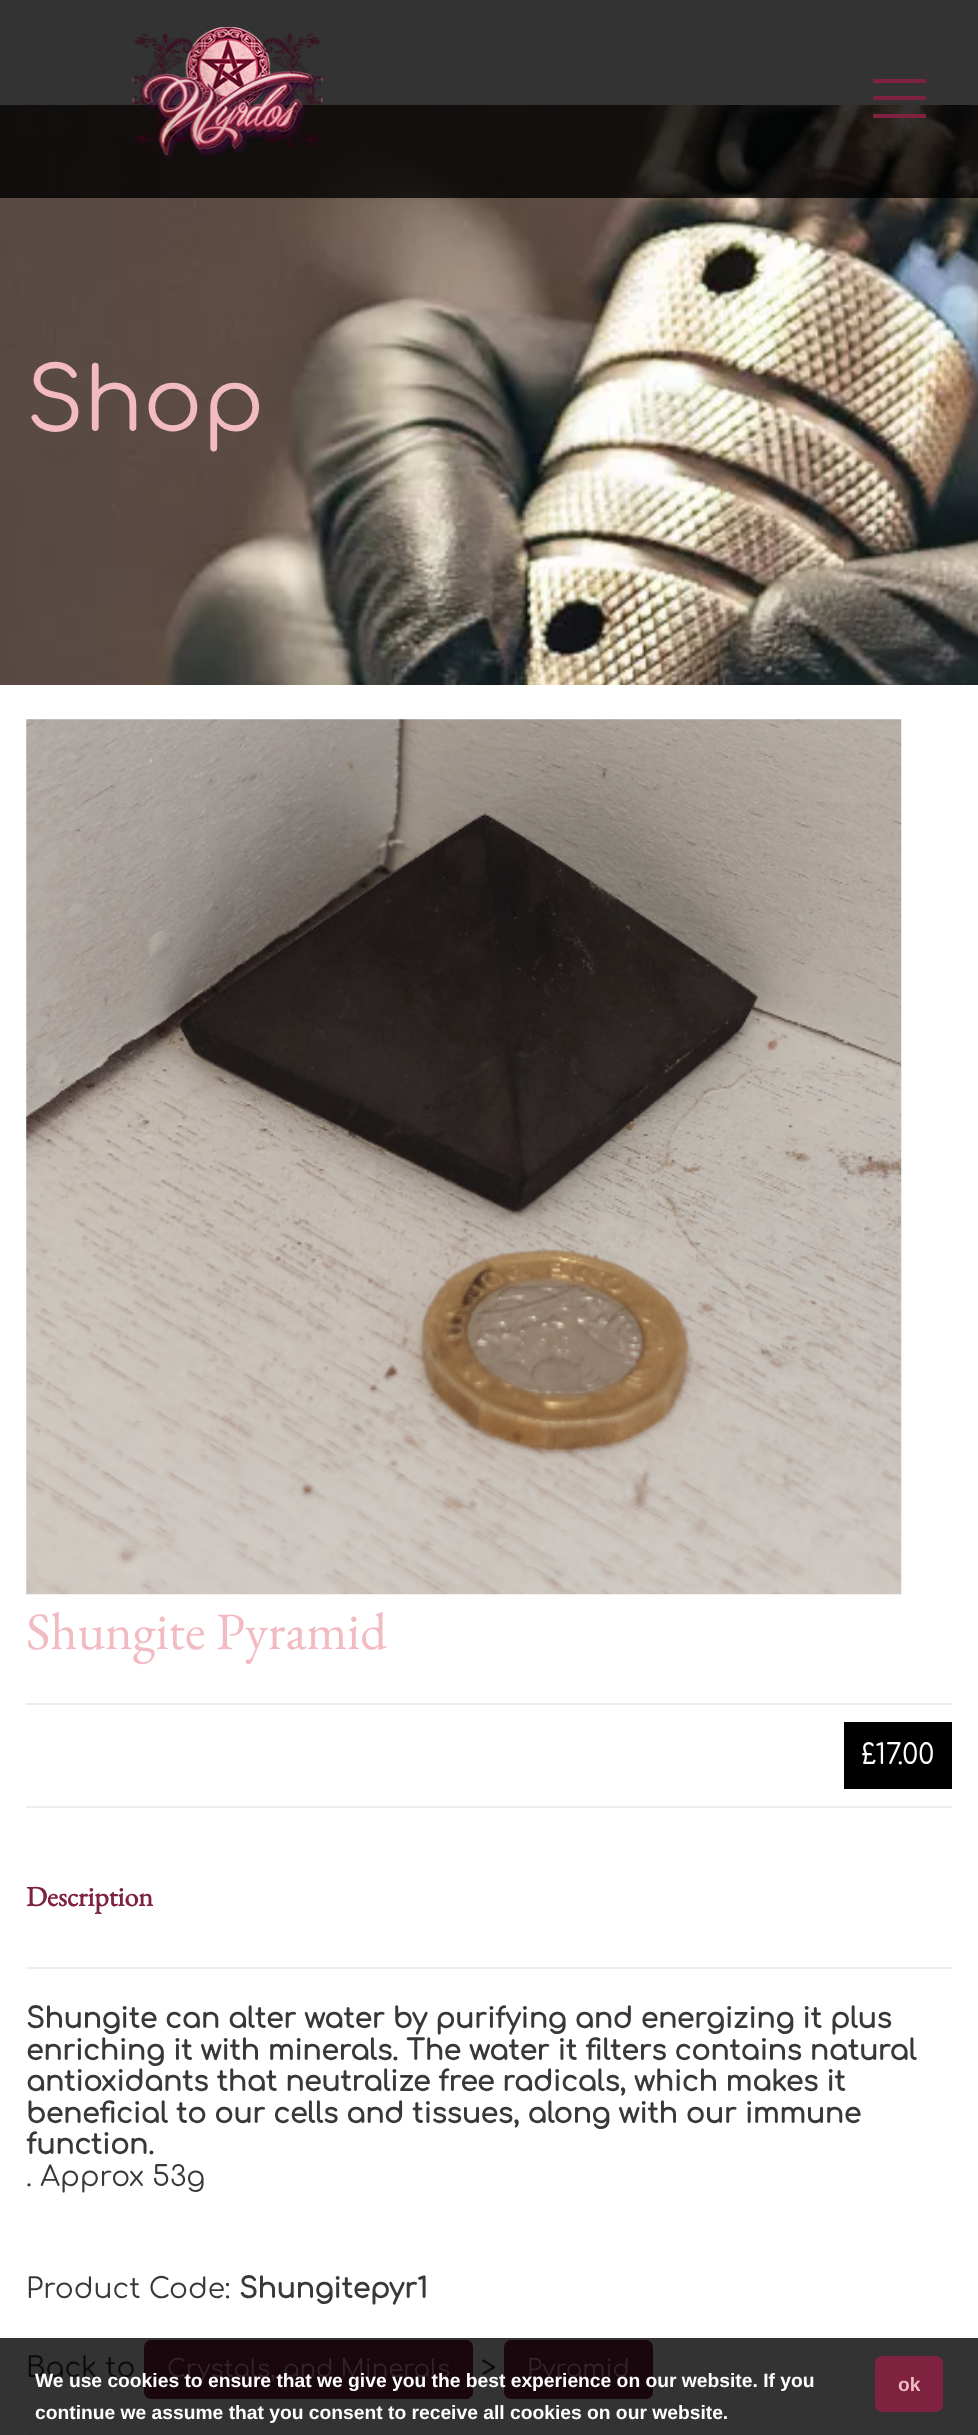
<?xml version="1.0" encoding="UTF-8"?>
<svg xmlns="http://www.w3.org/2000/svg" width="978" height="2435">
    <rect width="100%" height="100%" fill="#FFFFFF"/>
    <rect x="0" y="2338" width="978" height="97" fill="#333333"/>
    <image x="0" y="105" width="978" height="580" href="img_02.png"/>
    <rect x="0" y="0" width="978" height="198" fill="#000000" fill-opacity="0.8"/>
    <image x="131" y="27" width="193" height="133" href="img_01.png"/>
    <rect x="873" y="96" width="53" height="4" fill="#7E223F"/>
    <rect x="873" y="79" width="53" height="4" fill="#7E223F"/>
    <rect x="873" y="114" width="53" height="4" fill="#7E223F"/>
    <text x="26" y="431" font-family="Comfortaa" font-size="87.5" fill="#F2BBC2">Shop</text>
    <image x="26" y="719" width="876" height="876" href="img_03.png"/>
    <text x="26" y="1649" font-family="EB Garamond" font-size="52.5" fill="#F2BBC2">Shungite Pyramid</text>
    <rect x="26" y="1703" width="926" height="2" fill="#ECECEC"/>
    <rect x="26" y="1806" width="926" height="2" fill="#EEEEEE"/>
    <rect x="844" y="1722" width="108" height="67" fill="#000000"/>
    <text x="861" y="1764" font-family="Comfortaa" font-size="28" fill="#FFFFFF">£17.00</text>
    <text x="26" y="1906" font-family="EB Garamond" font-size="28" font-weight="700" fill="#7E223F">Description</text>
    <rect x="26" y="1967" width="926" height="2" fill="#EEEEEE"/>
    <text font-family="Comfortaa" font-size="28" font-weight="700" fill="#383838">
        <tspan x="26" y="2028">Shungite can alter water by purifying and energizing it plus</tspan>
        <tspan x="26" y="2060">enriching it with minerals. The water it filters contains natural</tspan>
        <tspan x="26" y="2091">antioxidants that neutralize free radicals, which makes it</tspan>
        <tspan x="26" y="2123">beneficial to our cells and tissues, along with our immune</tspan>
        <tspan x="26" y="2154">function.</tspan>
    </text>
    <text x="26" y="2186" font-family="Comfortaa" font-size="28" fill="#383838">. Approx 53g</text>
    <text x="26" y="2298" font-family="Comfortaa" font-size="28" fill="#383838">Product Code:</text>
    <text x="239" y="2298" font-family="Comfortaa" font-size="28" font-weight="700" fill="#383838">Shungitepyr1</text>
    <rect x="26" y="2434" width="926" height="1" fill="#303030"/>
    <text x="26" y="2377" font-family="Comfortaa" font-size="28" fill="#0B0B0B">Back to</text>
    <rect x="144" y="2340" width="329" height="59" rx="7" fill="#19070D"/>
    <text x="167" y="2377" font-family="Comfortaa" font-size="24.5" fill="#302527">Crystals, and Minerals</text>
    <text x="481" y="2377" font-family="Comfortaa" font-size="28" fill="#0B0B0B">&gt;</text>
    <rect x="504" y="2340" width="149" height="59" rx="7" fill="#19070D"/>
    <text x="527" y="2377" font-family="Comfortaa" font-size="24.5" fill="#302527">Pyramid</text>
    <text x="35" y="2387" font-family="Liberation Sans" font-size="19.25" font-weight="700" fill="#FFFFFF">We use cookies to ensure that we give you the best experience on our website. If you</text>
    <rect x="875" y="2356" width="68" height="56" rx="7" fill="#7E223F"/>
    <text x="898" y="2391" font-family="Liberation Sans" font-size="19.25" font-weight="700" fill="#F2BBC2">ok</text>
    <text x="35" y="2419" font-family="Liberation Sans" font-size="19.25" font-weight="700" fill="#FFFFFF">continue we assume that you consent to receive all cookies on our website.</text>
</svg>
